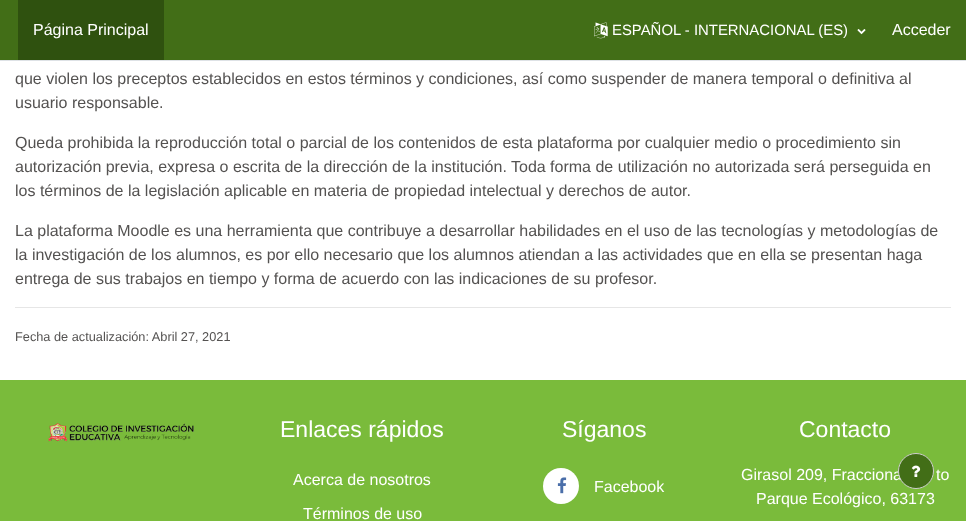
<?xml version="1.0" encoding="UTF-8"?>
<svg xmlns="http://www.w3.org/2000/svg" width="966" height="521">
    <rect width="100%" height="100%" fill="#FFFFFF"/>
    <rect x="0" y="0" width="966" height="60" fill="#426E17"/>
    <rect x="0" y="60" width="966" height="1" fill="#DEE2E6"/>
    <rect x="18" y="0" width="146" height="60" fill="#2F510F"/>
    <text x="33" y="35" font-family="Liberation Sans" font-size="16" fill="#FFFFFF">Página Principal</text>
    <image x="594" y="22" width="14" height="17" href="img_01.png"/>
    <text x="612" y="35" font-family="Liberation Sans" font-size="14.9" fill="#FFFFFF">ESPAÑOL - INTERNACIONAL (ES)</text>
    <image x="857" y="29" width="9" height="6" href="img_02.png"/>
    <text x="892" y="35" font-family="Liberation Sans" font-size="16" fill="#FFFFFF">Acceder</text>
    <text font-family="Liberation Sans" font-size="16" fill="#545251">
        <tspan x="15" y="84">que violen los preceptos establecidos en estos términos y condiciones, así como suspender de manera temporal o definitiva al</tspan>
        <tspan x="15" y="108">usuario responsable.</tspan>
    </text>
    <text font-family="Liberation Sans" font-size="16" fill="#545251">
        <tspan x="15" y="148">Queda prohibida la reproducción total o parcial de los contenidos de esta plataforma por cualquier medio o procedimiento sin</tspan>
        <tspan x="15" y="172">autorización previa, expresa o escrita de la dirección de la institución. Toda forma de utilización no autorizada será perseguida en</tspan>
        <tspan x="15" y="196">los términos de la legislación aplicable en materia de propiedad intelectual y derechos de autor.</tspan>
    </text>
    <text font-family="Liberation Sans" font-size="16" fill="#545251">
        <tspan x="15" y="236">La plataforma Moodle es una herramienta que contribuye a desarrollar habilidades en el uso de las tecnologías y metodologías de</tspan>
        <tspan x="15" y="260">la investigación de los alumnos, es por ello necesario que los alumnos atiendan a las actividades que en ella se presentan haga</tspan>
        <tspan x="15" y="284">entrega de sus trabajos en tiempo y forma de acuerdo con las indicaciones de su profesor.</tspan>
    </text>
    <rect x="15" y="307" width="936" height="1" fill="#E6E6E6"/>
    <text x="15" y="341" font-family="Liberation Sans" font-size="12.75" fill="#545251">Fecha de actualización: Abril 27, 2021</text>
    <rect x="0" y="380" width="966" height="141" fill="#7ABB3B"/>
    <image x="48" y="423" width="146" height="19" href="img_03.png"/>
    <text x="280" y="437" font-family="Liberation Sans" font-size="23" fill="#FFFFFF">Enlaces rápidos</text>
    <text x="293" y="485" font-family="Liberation Sans" font-size="16" fill="#FFFFFF">Acerca de nosotros</text>
    <text x="303" y="519" font-family="Liberation Sans" font-size="16" fill="#FFFFFF">Términos de uso</text>
    <text x="562" y="437" font-family="Liberation Sans" font-size="23" fill="#FFFFFF">Síganos</text>
    <circle cx="561" cy="486" r="18" fill="#FFFFFF"/>
    <image x="557" y="477" width="10" height="17" href="img_04.png"/>
    <text x="594" y="492" font-family="Liberation Sans" font-size="16" fill="#FFFFFF">Facebook</text>
    <text x="799" y="437" font-family="Liberation Sans" font-size="23" fill="#FFFFFF">Contacto</text>
    <text x="741" y="480" font-family="Liberation Sans" font-size="16" fill="#FFFFFF">Girasol 209, Fracciona</text>
    <text x="936" y="480" font-family="Liberation Sans" font-size="16" fill="#FFFFFF">to</text>
    <text x="756" y="504" font-family="Liberation Sans" font-size="16" fill="#FFFFFF">Parque Ecológico, 63173</text>
    <circle cx="916" cy="471" r="17.5" fill="#426E17" stroke="#CDCDCD"/>
    <image x="911" y="465" width="10" height="12" href="img_05.png"/>
</svg>
